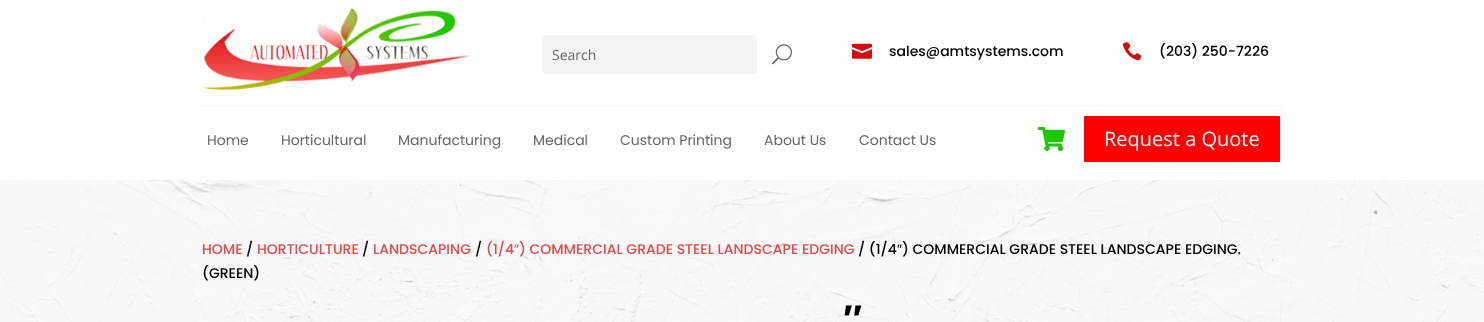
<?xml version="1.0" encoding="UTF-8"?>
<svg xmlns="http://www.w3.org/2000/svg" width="1484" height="322">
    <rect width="100%" height="100%" fill="#FFFFFF"/>
    <image x="202" y="8" width="269" height="82" href="img_01.png"/>
    <path d="M 545 35 H 757 V 74 H 545 C 543.5 74 542 72.5 542 71 V 38 C 542 36.5 543.5 35 545 35 Z" fill="#F4F4F4"/>
    <text x="552" y="60" font-family="Open Sans" font-size="14" fill="#666666">Search</text>
    <image x="772" y="44" width="20" height="21" href="img_02.png"/>
    <image x="852" y="43" width="20" height="16" href="img_03.png"/>
    <text x="889" y="56" font-family="Poppins" font-size="14" font-weight="500" fill="#000000">sales@amtsystems.com</text>
    <image x="1122" y="42" width="20" height="19" href="img_04.png"/>
    <text x="1159" y="56" font-family="Poppins" font-size="14" font-weight="500" fill="#000000">(203) 250-7226</text>
    <rect x="202" y="105" width="1080" height="1" fill="#F5F5F5"/>
    <text x="207" y="145" font-family="Poppins" font-size="14" fill="#666666">Home</text>
    <text x="281" y="145" font-family="Poppins" font-size="14" fill="#666666">Horticultural</text>
    <text x="398" y="145" font-family="Poppins" font-size="14" fill="#666666">Manufacturing</text>
    <text x="533" y="145" font-family="Poppins" font-size="14" fill="#666666">Medical</text>
    <text x="620" y="145" font-family="Poppins" font-size="14" fill="#666666">Custom Printing</text>
    <text x="764" y="145" font-family="Poppins" font-size="14" fill="#666666">About Us</text>
    <text x="859" y="145" font-family="Poppins" font-size="14" fill="#666666">Contact Us</text>
    <image x="1037" y="126" width="29" height="26" href="img_05.png"/>
    <rect x="1083" y="115" width="198" height="48" rx="2" fill="#FE0101" stroke="#FEFEFE" stroke-width="2"/>
    <text x="1104" y="146" font-family="Open Sans" font-size="20" fill="#FEFEFE">Request a Quote</text>
    <image x="0" y="180" width="1484" height="142" href="img_06.png"/>
    <text x="202" y="254" font-family="Poppins" font-size="14" font-weight="500" fill="#E74849">HOME</text>
    <text x="246" y="254" font-family="Poppins" font-size="14" font-weight="500" fill="#000000">/</text>
    <text x="257" y="254" font-family="Poppins" font-size="14" font-weight="500" fill="#E74849">HORTICULTURE</text>
    <text x="362" y="254" font-family="Poppins" font-size="14" font-weight="500" fill="#000000">/</text>
    <text x="373" y="254" font-family="Poppins" font-size="14" font-weight="500" fill="#E74849">LANDSCAPING</text>
    <text x="475" y="254" font-family="Poppins" font-size="14" font-weight="500" fill="#000000">/</text>
    <text x="486" y="254" font-family="Poppins" font-size="14" font-weight="500" fill="#E74849">(1/4</text>
    <text x="514" y="254" font-family="Liberation Sans" font-size="14" fill="#E74849">″</text>
    <text x="519" y="254" font-family="Poppins" font-size="14" font-weight="500" fill="#E74849">) COMMERCIAL GRADE STEEL LANDSCAPE EDGING</text>
    <text x="858" y="254" font-family="Poppins" font-size="14" font-weight="500" fill="#000000">/ (1/4</text>
    <text x="897" y="254" font-family="Liberation Sans" font-size="14" fill="#000000">″</text>
    <text x="902" y="254" font-family="Poppins" font-size="14" font-weight="500" fill="#000000">) COMMERCIAL GRADE STEEL LANDSCAPE EDGING.</text>
    <text x="202" y="278" font-family="Poppins" font-size="14" font-weight="500" fill="#000000">(GREEN)</text>
    <text x="843" y="333" font-family="Liberation Sans" font-size="40" font-weight="700" fill="#000000">″</text>
</svg>
